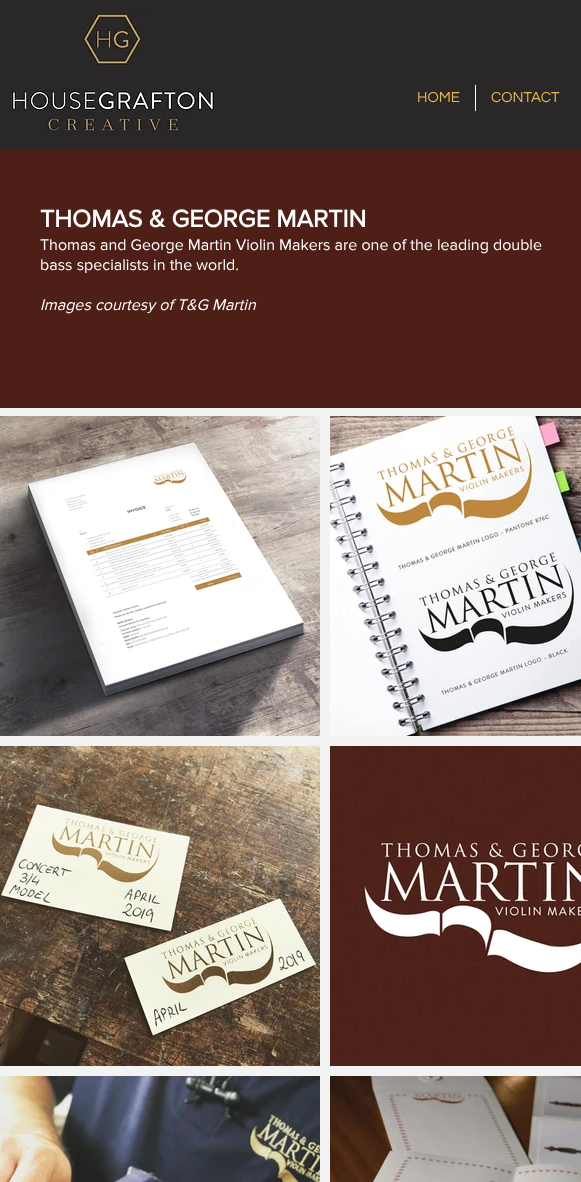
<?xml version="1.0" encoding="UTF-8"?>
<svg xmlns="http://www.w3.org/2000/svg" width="581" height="1182">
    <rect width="100%" height="100%" fill="#F3F3F3"/>
    <rect x="0" y="0" width="581" height="150" fill="#292728"/>
    <text x="417" y="102" font-family="Questrial" font-size="15" fill="#E6BB50">HOME</text>
    <rect x="475" y="85" width="1" height="26" fill="#FFFFFF"/>
    <text x="491" y="102" font-family="Questrial" font-size="15" fill="#E6BB50">CONTACT</text>
    <image x="11" y="12" width="204" height="125" href="img_01.png"/>
    <rect x="0" y="150" width="581" height="258" fill="#4E1F16"/>
    <text x="40" y="227" font-family="'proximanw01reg'" font-size="25" font-weight="700" fill="#FFFFFF">THOMAS &amp; GEORGE MARTIN</text>
    <text font-family="'proximanw01reg'" font-size="16" fill="#FFFFFF">
        <tspan x="40" y="250">Thomas and George Martin Violin Makers are one of the leading double</tspan>
        <tspan x="40" y="270">bass specialists in the world.</tspan>
    </text>
    <text x="40" y="310" font-family="'proximanw01reg'" font-size="16" font-style="italic" fill="#FFFFFF">Images courtesy of T&amp;G Martin</text>
    <image x="0" y="416" width="320" height="320" href="img_02.png"/>
    <image x="330" y="416" width="251" height="320" href="img_03.png"/>
    <image x="0" y="746" width="320" height="320" href="img_04.png"/>
    <image x="330" y="746" width="251" height="320" href="img_05.png"/>
    <image x="0" y="1076" width="320" height="106" href="img_06.png"/>
    <image x="330" y="1076" width="251" height="106" href="img_07.png"/>
</svg>
